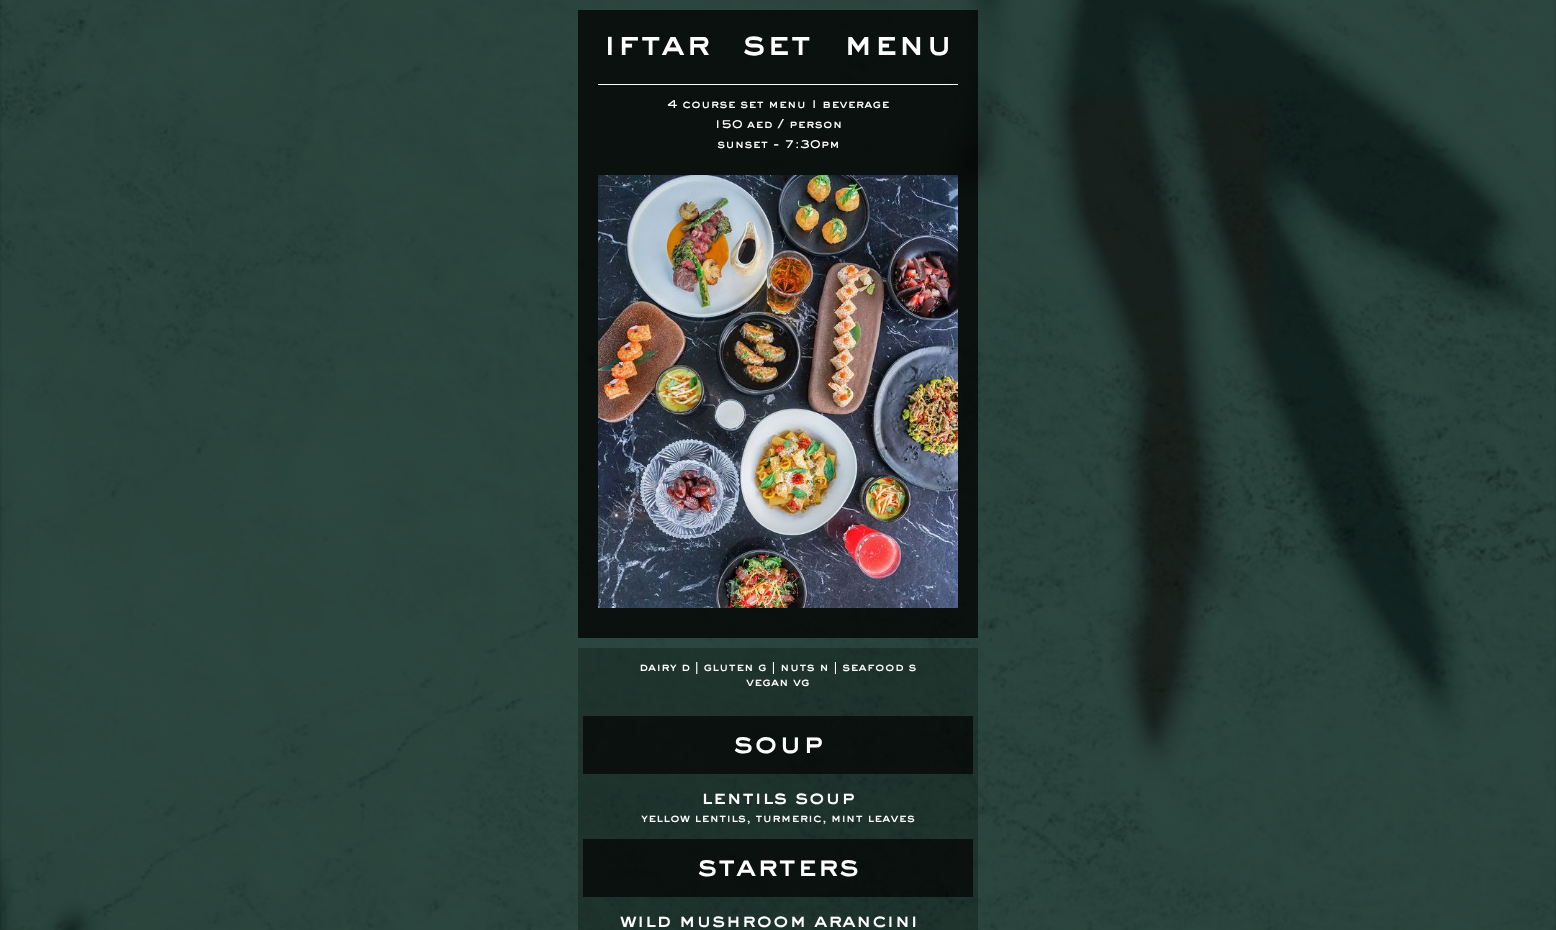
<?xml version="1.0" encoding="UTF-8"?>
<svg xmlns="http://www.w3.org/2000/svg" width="1556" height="930">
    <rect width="100%" height="100%" fill="#FFFFFF"/>
    <image x="0" y="0" width="1556" height="930" href="img_01.png"/>
    <rect x="578" y="10" width="400" height="628" fill="#000000" fill-opacity="0.75"/>
    <text x="603" y="55" font-family="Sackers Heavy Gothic" font-size="35" font-weight="900" fill="#FFFFFF">iftar</text>
    <text x="742" y="55" font-family="Sackers Heavy Gothic" font-size="35" font-weight="900" fill="#FFFFFF">set</text>
    <text x="843" y="55" font-family="Sackers Heavy Gothic" font-size="35" font-weight="900" fill="#FFFFFF">menu</text>
    <rect x="598" y="84" width="360" height="1" fill="#FFFFFF"/>
    <text x="667" y="108" font-family="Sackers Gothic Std" font-size="12" font-weight="900" fill="#FFFFFF">4 course set menu 1 beverage</text>
    <text x="714" y="128" font-family="Sackers Gothic Std" font-size="12" font-weight="900" fill="#FFFFFF">150 aed / person</text>
    <text x="717" y="148" font-family="Sackers Gothic Std" font-size="12" font-weight="900" fill="#FFFFFF">sunset - 7:30pm</text>
    <image x="598" y="175" width="360" height="433" href="img_02.png"/>
    <rect x="578" y="648" width="400" height="282" fill="#000000" fill-opacity="0.25"/>
    <text x="639" y="671" font-family="Sackers Gothic Std" font-size="12" font-weight="900" fill="#FFFFFF">dairy d | gluten g | nuts n | seafood s</text>
    <text x="746" y="686" font-family="Sackers Gothic Std" font-size="12" font-weight="900" fill="#FFFFFF">vegan vg</text>
    <rect x="583" y="716" width="390" height="58" fill="#000000" fill-opacity="0.65"/>
    <text x="733" y="753" font-family="Sackers Heavy Gothic" font-size="30" font-weight="900" fill="#FFFFFF">soup</text>
    <text x="701" y="804" font-family="Sackers Heavy Gothic" font-size="20" font-weight="900" fill="#FFFFFF">lentils soup</text>
    <text x="641" y="822" font-family="Sackers Gothic Std" font-size="12" font-weight="900" fill="#FFFFFF">yellow lentils, turmeric, mint leaves</text>
    <rect x="583" y="839" width="390" height="58" fill="#000000" fill-opacity="0.65"/>
    <text x="697" y="876" font-family="Sackers Heavy Gothic" font-size="30" font-weight="900" fill="#FFFFFF">starters</text>
    <text x="620" y="927" font-family="Sackers Heavy Gothic" font-size="20" font-weight="900" fill="#FFFFFF">wild mushroom arancini</text>
</svg>
